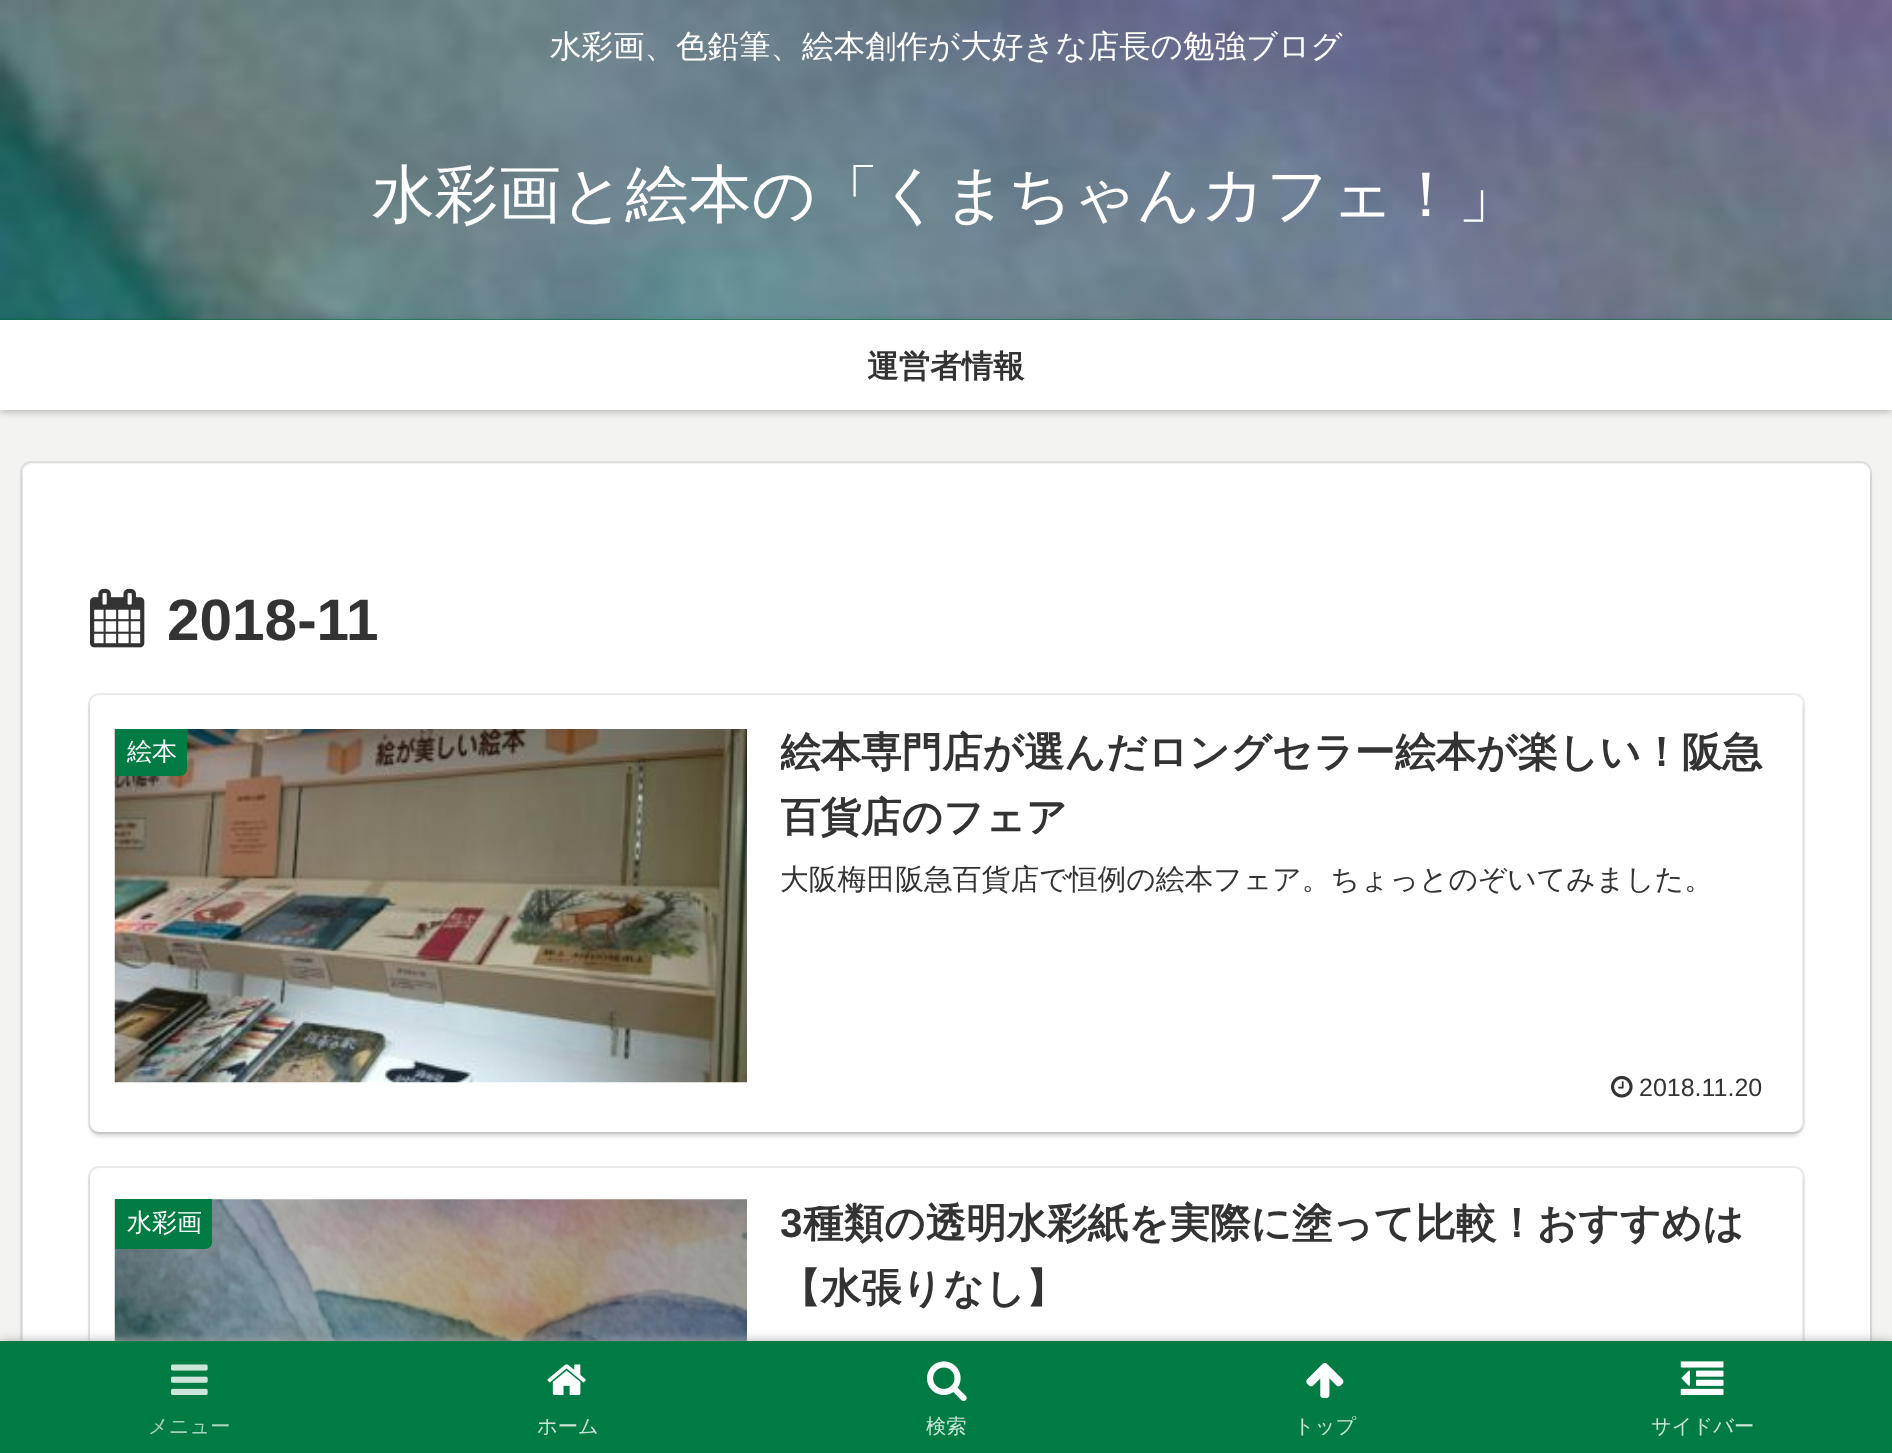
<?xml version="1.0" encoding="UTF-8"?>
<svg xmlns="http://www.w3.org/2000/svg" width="1892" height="1453">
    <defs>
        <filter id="blur1" x="-50%" y="-200%" width="200%" height="500%"><feGaussianBlur stdDeviation="3.5"/></filter>
        <filter id="blur2" x="-50%" y="-200%" width="200%" height="500%"><feGaussianBlur stdDeviation="2"/></filter>
        <clipPath id="clip1"><path d="M 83 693 H 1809 V 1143 H 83 Z M 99 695 H 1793 C 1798 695 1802 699 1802 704 V 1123 C 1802 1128 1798 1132 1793 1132 H 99 C 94 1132 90 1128 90 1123 V 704 C 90 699 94 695 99 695 Z" clip-rule="evenodd"/></clipPath>
        <clipPath id="clip2"><rect x="781" y="722" width="997" height="129"/></clipPath>
        <clipPath id="clip3"><path d="M 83 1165 H 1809 V 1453 H 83 Z M 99 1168 H 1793 C 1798 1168 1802 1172 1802 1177 V 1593 C 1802 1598 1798 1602 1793 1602 H 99 C 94 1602 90 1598 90 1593 V 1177 C 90 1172 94 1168 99 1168 Z" clip-rule="evenodd"/></clipPath>
        <filter id="blur3" x="-50%" y="-200%" width="200%" height="500%"><feGaussianBlur stdDeviation="5.5"/></filter>
    </defs>
    <rect width="100%" height="100%" fill="#F3F3F2"/>
    <rect x="0" y="319" width="1892" height="1" fill="#007B43"/>
    <image x="0" y="0" width="1892" height="320" href="img_01.png"/>
    <text x="550" y="57" font-family="WenQuanYi Zen Hei" font-size="31.5" font-weight="500" fill="#FFFFFF">水彩画、色鉛筆、絵本創作が大好きな店長の勉強ブログ</text>
    <text x="372" y="216" font-family="WenQuanYi Zen Hei" font-size="63" font-weight="500" fill="#FFFFFF">水彩画と絵本の「くまちゃんカフェ！」</text>
    <rect x="0" y="322" width="1892" height="90" fill="#000000" fill-opacity="0.25" filter="url(#blur1)"/>
    <rect x="0" y="320" width="1892" height="90" fill="#FFFFFF"/>
    <text x="867" y="377" font-family="WenQuanYi Zen Hei" font-size="31.5" font-weight="700" fill="#333333">運営者情報</text>
    <rect x="21" y="462" width="1850" height="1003" rx="10" fill="none" stroke="#E0E0DF" stroke-width="2"/>
    <rect x="23" y="468" width="1847" height="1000" rx="9" fill="#000000" fill-opacity="0.16" filter="url(#blur2)"/>
    <rect x="23" y="464" width="1847" height="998" rx="9" fill="#FFFFFF"/>
    <image x="90" y="588" width="55" height="60" href="img_02.png"/>
    <text x="167" y="640" font-family="Liberation Sans" font-size="58.5" font-weight="700" fill="#333333">2018-11</text>
    <rect x="89" y="694" width="1715" height="439" rx="10" fill="none" stroke="#EBEBEB" stroke-width="2"/>
    <g clip-path="url(#clip1)">
        <rect x="90" y="700" width="1712" height="436" rx="9" fill="#000000" fill-opacity="0.16" filter="url(#blur2)"/>
    </g>
    <image x="114" y="729" width="633" height="354" href="img_03.png"/>
    <path d="M 115 729 H 187 V 769 C 187 773 184 776 180 776 H 115 Z" fill="#007B43"/>
    <text x="127" y="760" font-family="WenQuanYi Zen Hei" font-size="25" font-weight="500" fill="#FFFFFF">絵本</text>
    <g clip-path="url(#clip2)">
        <text font-family="WenQuanYi Zen Hei" font-size="40.5" font-weight="700" fill="#333333">
            <tspan x="780" y="766">絵本専門店が選んだロングセラー絵本が楽しい！阪急</tspan>
            <tspan x="780" y="831">百貨店のフェア</tspan>
        </text>
    </g>
    <text x="780" y="889" font-family="WenQuanYi Zen Hei" font-size="28.8" font-weight="500" fill="#333333">大阪梅田阪急百貨店で恒例の絵本フェア。ちょっとのぞいてみました。</text>
    <image x="1611" y="1075" width="22" height="23" href="img_04.png"/>
    <text x="1639" y="1096" font-family="Liberation Sans" font-size="25" fill="#333333">2018.11.20</text>
    <rect x="89" y="1167" width="1715" height="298" rx="10" fill="none" stroke="#EBEBEB" stroke-width="2"/>
    <g clip-path="url(#clip3)">
        <rect x="90" y="1172" width="1712" height="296" rx="9" fill="#000000" fill-opacity="0.16" filter="url(#blur2)"/>
    </g>
    <image x="114" y="1199" width="633" height="142" href="img_05.png"/>
    <path d="M 115 1199 H 212 V 1242 C 212 1246 209 1249 205 1249 H 115 Z" fill="#007B43"/>
    <text x="127" y="1231" font-family="WenQuanYi Zen Hei" font-size="25" font-weight="500" fill="#FFFFFF">水彩画</text>
    <text x="780" y="1237" font-family="Liberation Sans" font-size="40.5" font-weight="700" fill="#333333">3</text>
    <text x="803" y="1237" font-family="WenQuanYi Zen Hei" font-size="40.5" font-weight="700" fill="#333333">種類の透明水彩紙を実際に塗って比較！おすすめは</text>
    <text x="780" y="1302" font-family="WenQuanYi Zen Hei" font-size="40.5" font-weight="700" fill="#333333">【水張りなし】</text>
    <rect x="0" y="1341" width="1892" height="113" fill="#A9A9A9" filter="url(#blur3)"/>
    <rect x="0" y="1341" width="1892" height="112" fill="#007B43"/>
    <image x="171" y="1364" width="37" height="31" href="img_06.png"/>
    <text x="148" y="1433" font-family="WenQuanYi Zen Hei" font-size="20.25" font-weight="500" fill="#A3CFBB">メニュー</text>
    <image x="547" y="1364" width="39" height="31" href="img_07.png"/>
    <text x="537" y="1433" font-family="WenQuanYi Zen Hei" font-size="20.25" font-weight="500" fill="#CCE5D9">ホーム</text>
    <image x="927" y="1361" width="40" height="41" href="img_08.png"/>
    <text x="926" y="1433" font-family="WenQuanYi Zen Hei" font-size="20.25" font-weight="500" fill="#CCE5D9">検索</text>
    <image x="1306" y="1363" width="38" height="36" href="img_09.png"/>
    <text x="1294" y="1433" font-family="WenQuanYi Zen Hei" font-size="20.25" font-weight="500" fill="#CCE5D9">トップ</text>
    <image x="1680" y="1361" width="44" height="34" href="img_10.png"/>
    <text x="1651" y="1433" font-family="WenQuanYi Zen Hei" font-size="20.25" font-weight="500" fill="#CCE5D9">サイドバー</text>
</svg>
